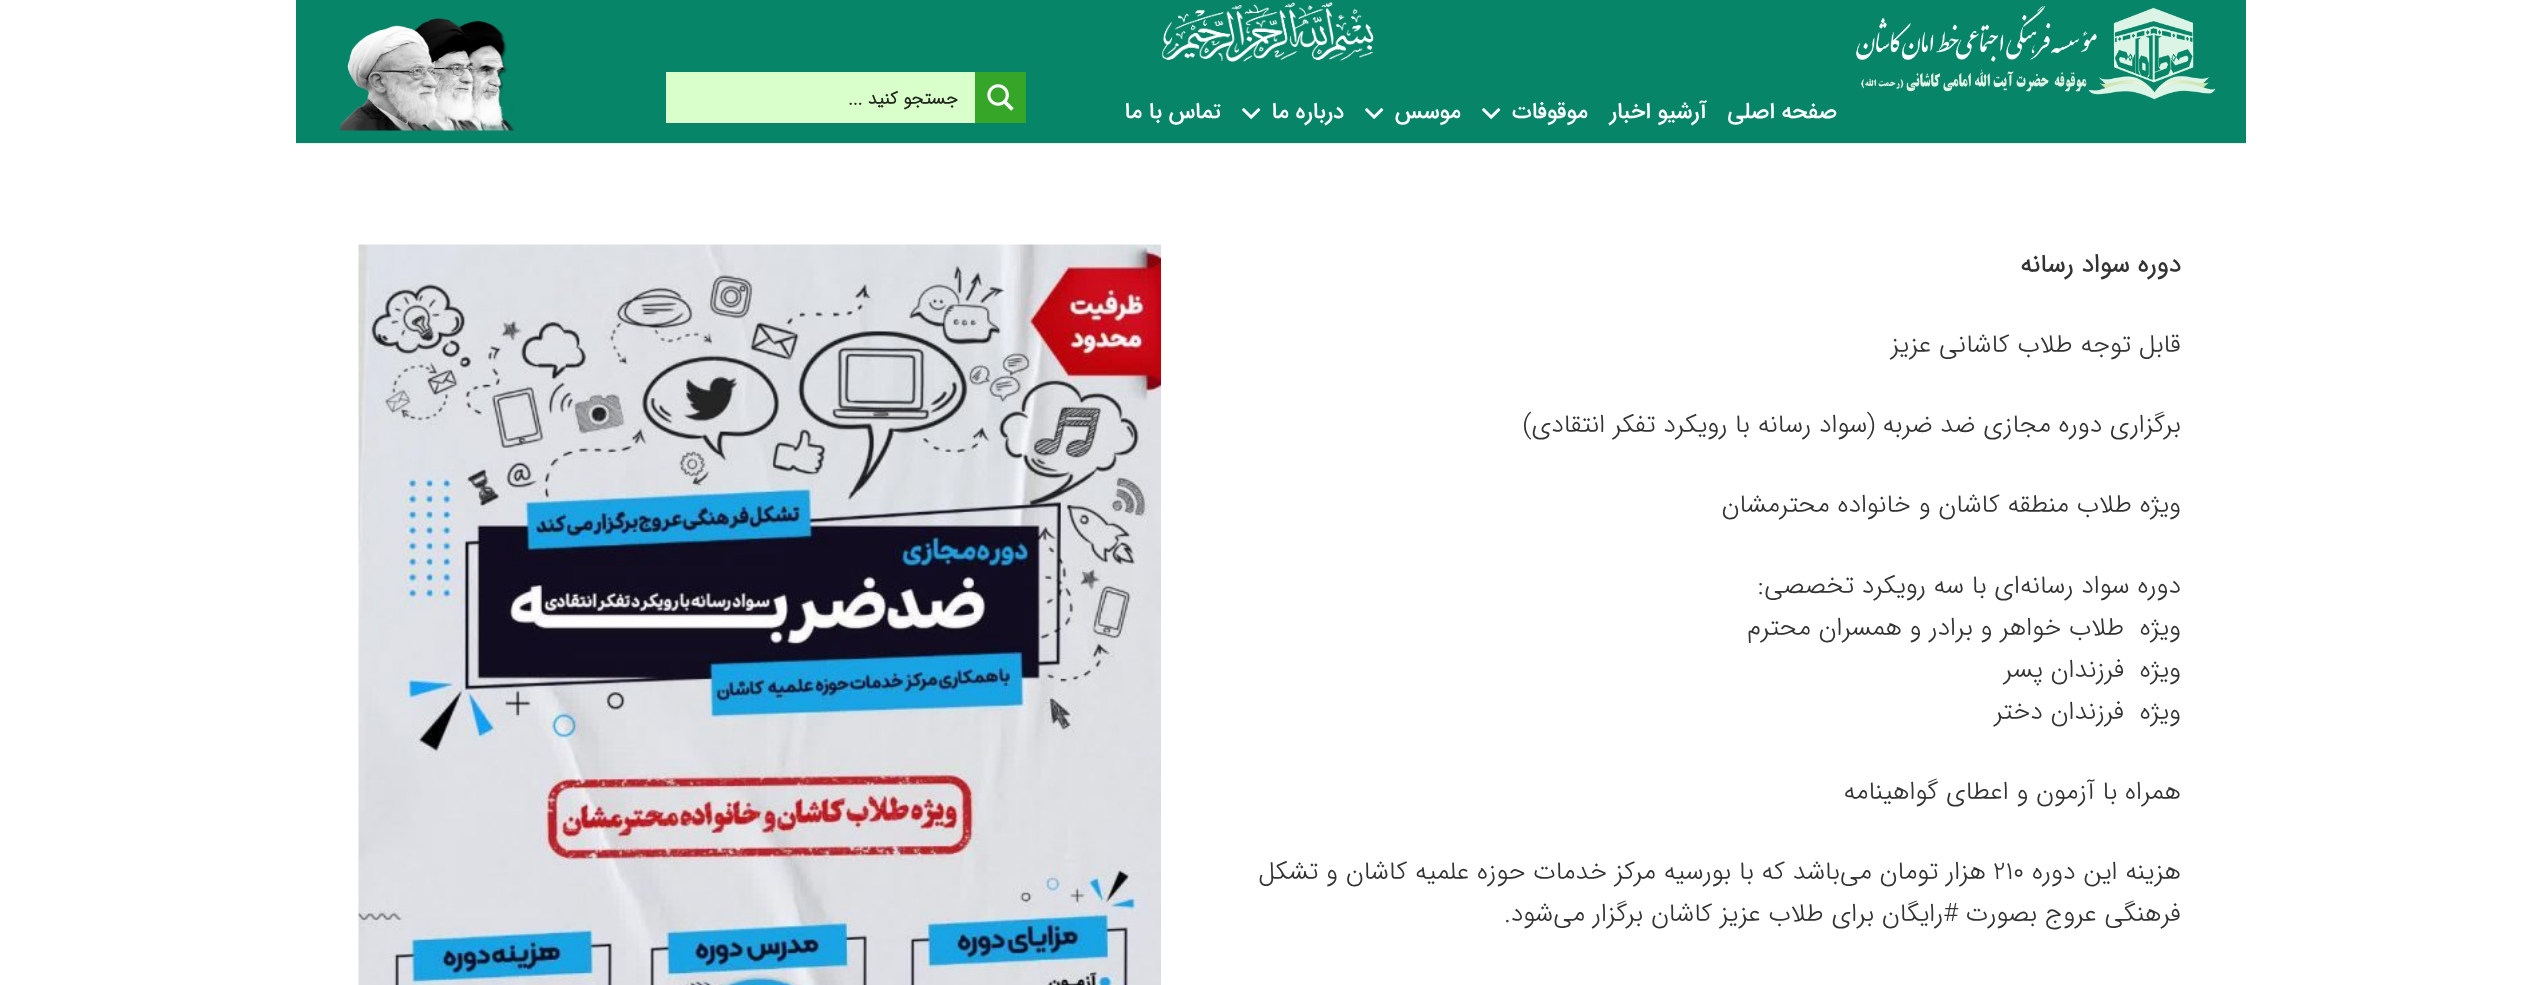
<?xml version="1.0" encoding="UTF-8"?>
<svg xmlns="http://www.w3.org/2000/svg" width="2539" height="985">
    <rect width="100%" height="100%" fill="#FFFFFF"/>
    <rect x="296" y="0" width="1950" height="68" fill="#078569"/>
    <image x="1162" y="2" width="212" height="60" href="img_01.png"/>
    <path d="M 296 142 V 144 H 2246 V 69 V 142 Z" fill="#EBEBEB"/>
    <rect x="296" y="68" width="1950" height="75" fill="#078569"/>
    <image x="1856" y="5" width="360" height="95" href="img_02.png"/>
    <text x="1837" y="118" font-family="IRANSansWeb" font-size="22.5" font-weight="500" direction="rtl" fill="#FFFFFF">صفحه اصلی</text>
    <text x="1707" y="118" font-family="IRANSansWeb" font-size="22.5" font-weight="500" direction="rtl" fill="#FFFFFF">آرشیو اخبار</text>
    <text x="1588" y="118" font-family="IRANSansWeb" font-size="22.5" font-weight="500" direction="rtl" fill="#FFFFFF">موقوفات</text>
    <image x="1482" y="108" width="19" height="11" href="img_03.png"/>
    <text x="1461" y="118" font-family="IRANSansWeb" font-size="22.5" font-weight="500" direction="rtl" fill="#FFFFFF">موسس</text>
    <image x="1365" y="108" width="19" height="11" href="img_03.png"/>
    <text x="1344" y="118" font-family="IRANSansWeb" font-size="22.5" font-weight="500" direction="rtl" fill="#FFFFFF">درباره ما</text>
    <image x="1242" y="108" width="19" height="11" href="img_03.png"/>
    <text x="1221" y="118" font-family="IRANSansWeb" font-size="22.5" font-weight="500" direction="rtl" fill="#FFFFFF">تماس با ما</text>
    <rect x="666" y="72" width="309" height="51" fill="#D9FFCB"/>
    <rect x="975" y="72" width="51" height="51" fill="#36A628"/>
    <image x="987" y="84" width="27" height="27" href="img_04.png"/>
    <text x="958" y="104" font-family="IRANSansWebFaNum" font-size="18" font-weight="700" direction="rtl" fill="#21261E">جستجو کنید ...</text>
    <image x="340" y="18" width="175" height="113" href="img_05.png"/>
    <text x="2181" y="272" font-family="IRANSansWebFaNum" font-size="25.5" font-weight="700" direction="rtl" fill="#333333">دوره سواد رسانه</text>
    <image x="358" y="244" width="803" height="741" href="img_06.png"/>
    <text x="2181" y="352" font-family="IRANSansWebFaNum" font-size="25.5" font-weight="300" direction="rtl" fill="#333333">قابل توجه طلاب کاشانی عزیز</text>
    <text x="2181" y="432" font-family="IRANSansWebFaNum" font-size="25.5" font-weight="300" direction="rtl" fill="#333333">برگزاری دوره مجازی ضد ضربه (سواد رسانه با رویکرد تفکر انتقادی)</text>
    <text x="2181" y="512" font-family="IRANSansWebFaNum" font-size="25.5" font-weight="300" direction="rtl" fill="#333333">ویژه طلاب منطقه کاشان و خانواده محترمشان</text>
    <text font-family="IRANSansWebFaNum" font-size="25.5" font-weight="300" direction="rtl" fill="#333333" xml:space="preserve"><tspan x="2181" y="593">دوره سواد رسانه‌ای با سه رویکرد تخصصی:</tspan><tspan x="2181" y="635">ویژه  طلاب خواهر و برادر و همسران محترم</tspan><tspan x="2181" y="677">ویژه  فرزندان پسر</tspan><tspan x="2181" y="719">ویژه  فرزندان دختر</tspan></text>
    <text x="2181" y="799" font-family="IRANSansWebFaNum" font-size="25.5" font-weight="300" direction="rtl" fill="#333333">همراه با آزمون و اعطای گواهینامه</text>
    <text x="2181" y="879" font-family="IRANSansWebFaNum" font-size="25.5" font-weight="300" direction="rtl" fill="#333333">هزینه این دوره</text>
    <text x="1993" y="879" font-family="IRANSansWebFaNum" font-size="25.5" font-weight="300" fill="#333333">۲۱۰</text>
    <text x="1986" y="879" font-family="IRANSansWebFaNum" font-size="25.5" font-weight="300" direction="rtl" fill="#333333">هزار تومان می‌باشد که با بورسیه مرکز خدمات حوزه‌ علمیه کاشان و تشکل</text>
    <text x="2181" y="921" font-family="IRANSansWebFaNum" font-size="25.5" font-weight="300" direction="rtl" fill="#333333">فرهنگی عروج بصورت #رایگان برای طلاب عزیز کاشان برگزار می‌شود.</text>
</svg>
